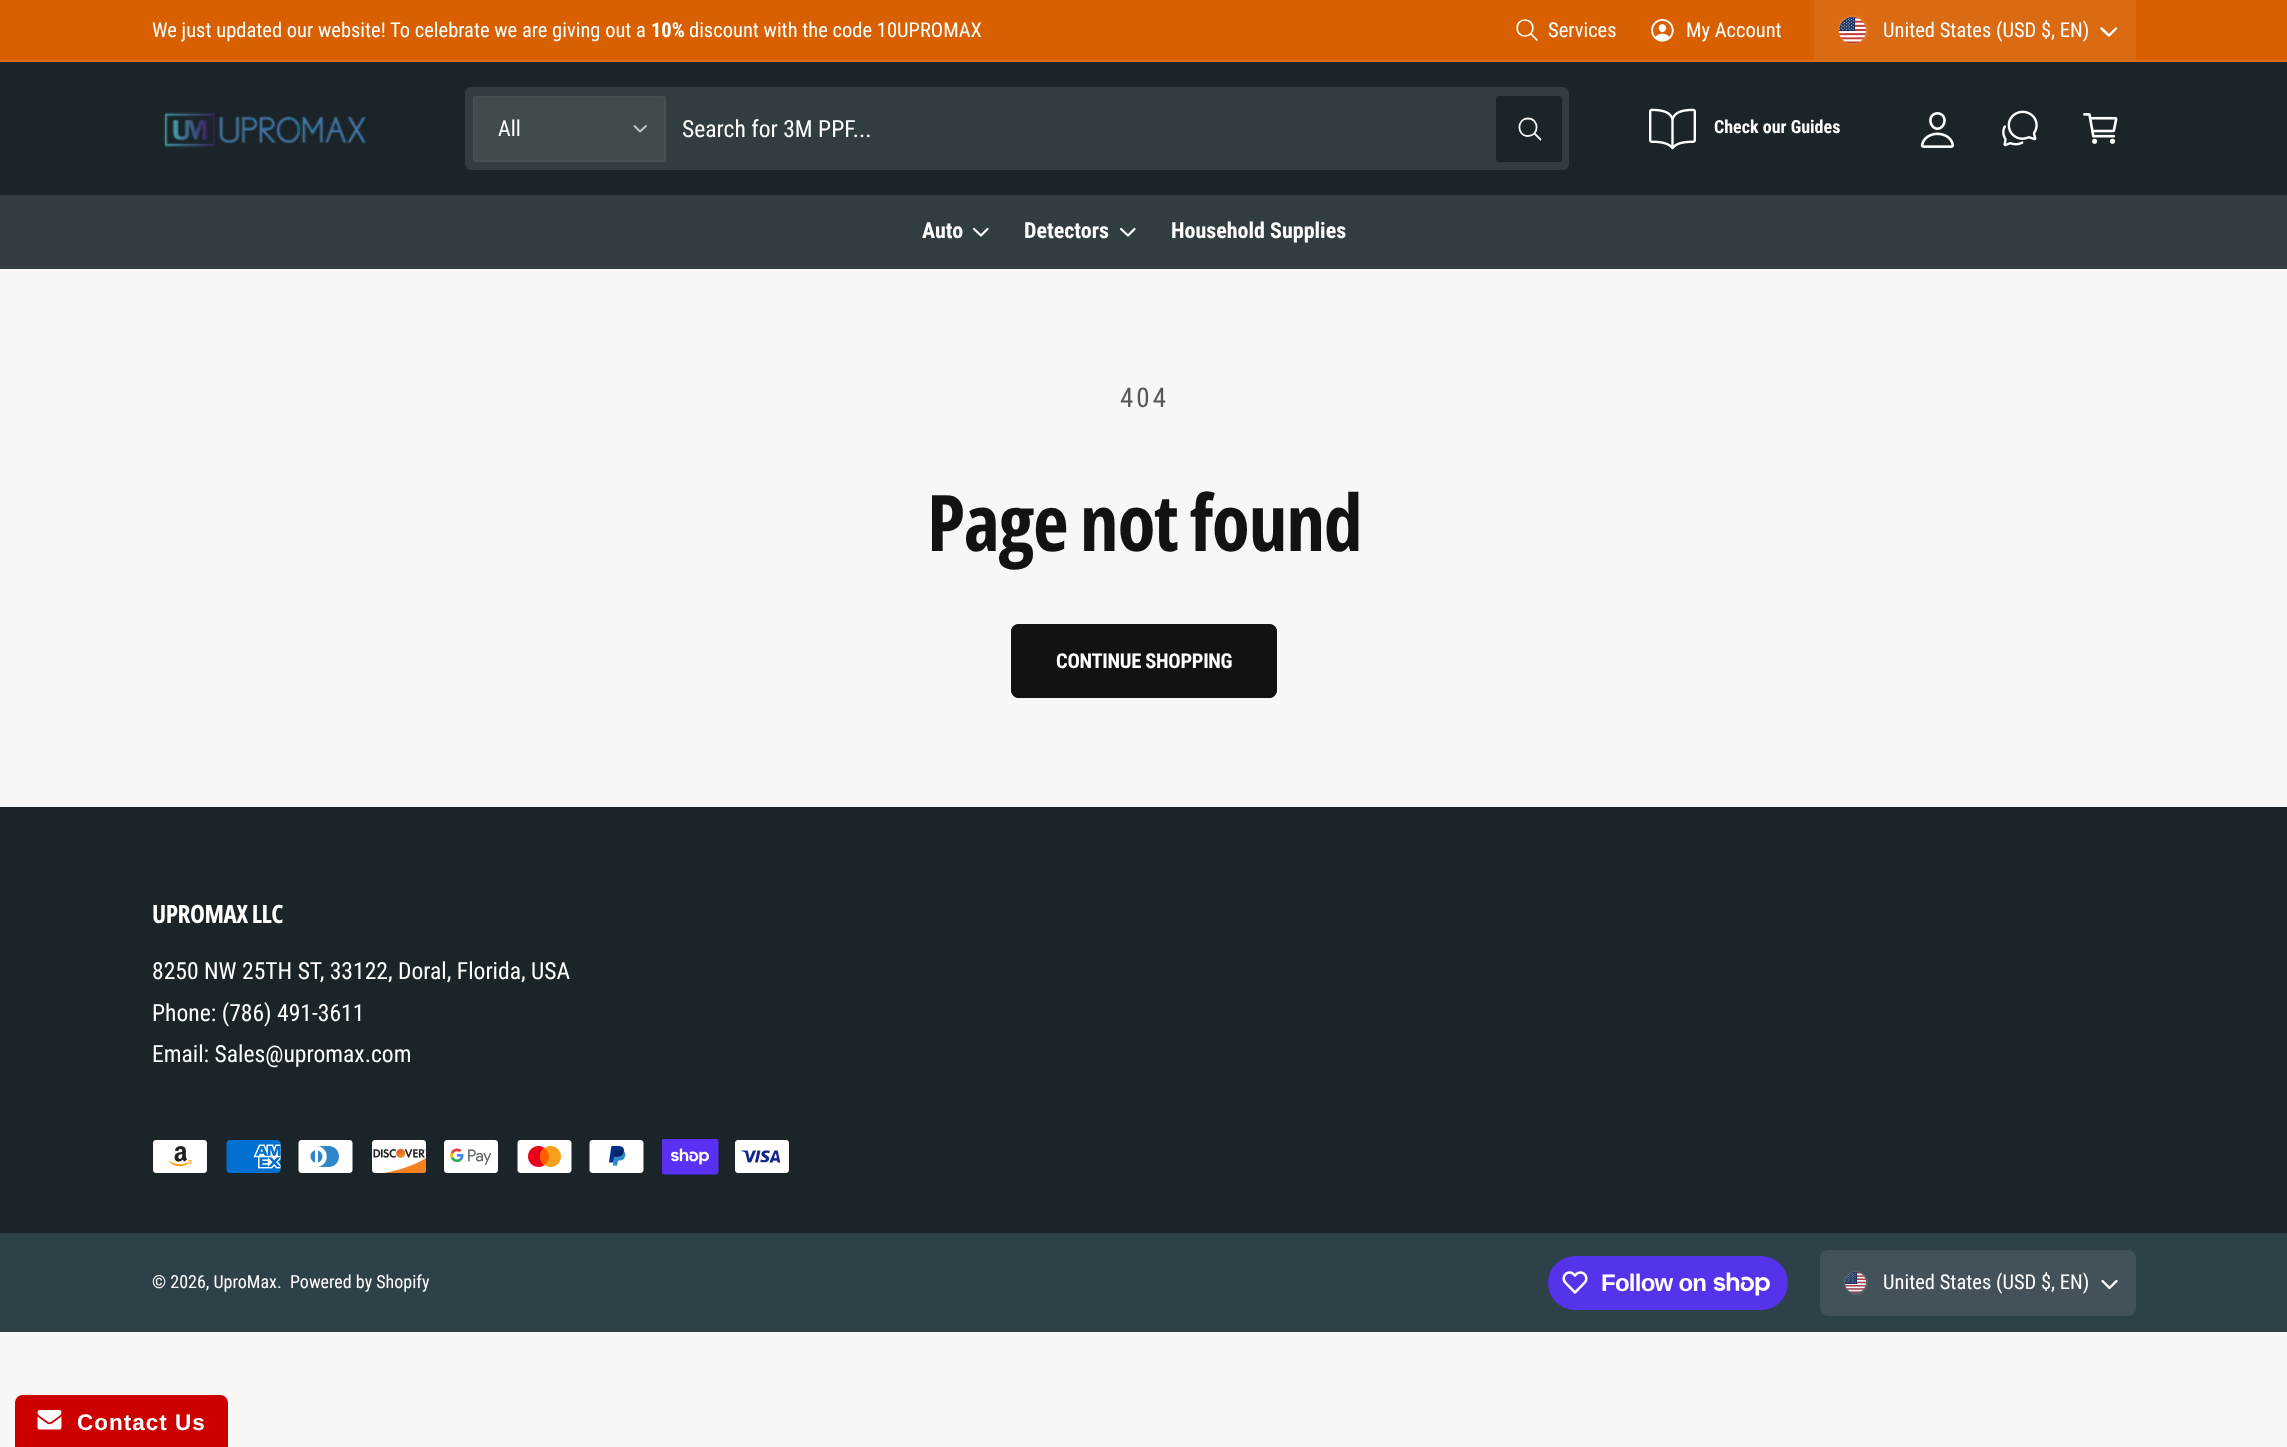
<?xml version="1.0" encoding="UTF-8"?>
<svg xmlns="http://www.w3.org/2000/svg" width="2287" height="1447">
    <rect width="100%" height="100%" fill="#F9F7F6"/>
    <rect x="0" y="0" width="2287" height="60" fill="#D86000"/>
    <rect x="0" y="60" width="2287" height="2" fill="#DB6D14"/>
    <text x="152" y="37" font-family="Roboto Condensed" font-size="20.5" fill="#FFFFFF">We just updated our website! To celebrate we are giving out a</text>
    <text x="651" y="37" font-family="Roboto Condensed" font-size="20.5" font-weight="700" fill="#FFFFFF">10%</text>
    <text x="689" y="37" font-family="Roboto Condensed" font-size="20.5" fill="#FFFFFF">discount with the code 10UPROMAX</text>
    <path d="M 1525 20 C 1514.5 20 1514.5 36 1525 36 C 1535.5 36 1535.5 20 1525 20 Z" fill="none" stroke="#FFFFFF" stroke-width="1.7"/>
    <path d="M 1531 34 L 1537 40" fill="none" stroke="#FFFFFF" stroke-width="1.7" stroke-linecap="round"/>
    <text x="1548" y="37" font-family="Roboto Condensed" font-size="20.5" fill="#FFFFFF">Services</text>
    <image x="1651" y="19" width="23" height="23" href="img_01.png"/>
    <text x="1686" y="37" font-family="Roboto Condensed" font-size="20.5" fill="#FFFFFF">My Account</text>
    <rect x="1814" y="0" width="322" height="60" fill="#DB6B12"/>
    <circle cx="1853" cy="30" r="14" fill="none" stroke="#DF7A2A" stroke-width="2"/>
    <image x="1839" y="17" width="27" height="27" href="img_02.png"/>
    <text x="1883" y="37" font-family="Roboto Condensed" font-size="20.5" fill="#FFFFFF">United States (USD $, EN)</text>
    <path d="M 2101.5 28.5 L 2109 35.5 L 2116 28.5" fill="none" stroke="#FFFFFF" stroke-width="2.4" stroke-linecap="round" stroke-linejoin="round"/>
    <rect x="0" y="62" width="2287" height="133" fill="#1B2529"/>
    <image x="163" y="112" width="204" height="36" href="img_03.png"/>
    <rect x="465" y="87" width="1104" height="83" rx="6" fill="#323D41"/>
    <rect x="473" y="96" width="193" height="66" rx="3" fill="#404B4E"/>
    <rect x="474" y="97" width="191" height="64" fill="none" stroke="#FFFFFF" stroke-opacity="0.03" stroke-width="2"/>
    <text x="498" y="136" font-family="Roboto Condensed" font-size="22" fill="#FFFFFF">All</text>
    <path d="M 634.5 126 L 640 131.5 L 646 126" fill="none" stroke="#C6C9CA" stroke-width="1.9" stroke-linecap="round" stroke-linejoin="round"/>
    <text x="682" y="137" font-family="Roboto Condensed" font-size="23.6" fill="#FFFFFF">Search for 3M PPF...</text>
    <rect x="1496" y="96" width="66" height="66" rx="3" fill="#1B2529"/>
    <path d="M 1528 118.5 C 1516.5 118.5 1516.5 136 1528 136 C 1539.5 136 1539.5 118.5 1528 118.5 Z" fill="none" stroke="#F3F3F3" stroke-width="1.8"/>
    <path d="M 1534.5 133.5 L 1540.5 139.5" fill="none" stroke="#F3F3F3" stroke-width="1.8" stroke-linecap="round"/>
    <image x="1649" y="108" width="47" height="42" href="img_04.png"/>
    <text x="1714" y="133" font-family="Roboto Condensed" font-size="18" font-weight="700" fill="#FFFFFF">Check our Guides</text>
    <image x="1920" y="112" width="35" height="36" href="img_05.png"/>
    <image x="2002" y="110" width="36" height="37" href="img_06.png"/>
    <image x="2083" y="113" width="35" height="31" href="img_07.png"/>
    <rect x="0" y="195" width="2287" height="74" fill="#323D41"/>
    <text x="922" y="238" font-family="Roboto Condensed" font-size="22" font-weight="700" fill="#FFFFFF">Auto</text>
    <path d="M 974 229 L 981 235.5 L 987.5 229" fill="none" stroke="#FFFFFF" stroke-width="2.2" stroke-linecap="round" stroke-linejoin="round"/>
    <text x="1024" y="238" font-family="Roboto Condensed" font-size="22" font-weight="700" fill="#FFFFFF">Detectors</text>
    <path d="M 1121 229 L 1128 235.5 L 1134.5 229" fill="none" stroke="#FFFFFF" stroke-width="2.2" stroke-linecap="round" stroke-linejoin="round"/>
    <text x="1171" y="238" font-family="Roboto Condensed" font-size="22" font-weight="700" fill="#FFFFFF">Household Supplies</text>
    <text x="1120" y="407" font-family="Roboto Condensed" font-size="27" letter-spacing="3" fill="#575756">404</text>
    <text x="927" y="551" font-family="Open Sans Condensed" font-size="78" font-weight="700" letter-spacing="-1.4" fill="#121212">Page not found</text>
    <rect x="1011" y="624" width="266" height="74" rx="8" fill="#121212"/>
    <rect x="1012" y="625" width="264" height="72" rx="7" fill="none" stroke="#121212" stroke-width="2"/>
    <text x="1056" y="668" font-family="Roboto Condensed" font-size="20.5" font-weight="700" letter-spacing="-0.3" fill="#FFFFFF">CONTINUE SHOPPING</text>
    <rect x="0" y="807" width="2287" height="426" fill="#1B2529"/>
    <text x="152" y="923" font-family="Open Sans Condensed" font-size="25.25" font-weight="700" letter-spacing="-0.5" fill="#FFFFFF">UPROMAX LLC</text>
    <text font-family="Roboto Condensed" font-size="23.6" fill="#FFFFFF">
        <tspan x="152" y="979">8250 NW 25TH ST, 33122, Doral, Florida, USA</tspan>
        <tspan x="152" y="1021">Phone: (786) 491-3611</tspan>
        <tspan x="152" y="1062">Email: Sales@upromax.com</tspan>
    </text>
    <image x="153" y="1140" width="54" height="33" href="img_08.png"/>
    <image x="226" y="1140" width="55" height="33" href="img_09.png"/>
    <image x="298" y="1140" width="55" height="33" href="img_10.png"/>
    <image x="372" y="1140" width="55" height="33" href="img_11.png"/>
    <image x="444" y="1140" width="54" height="33" href="img_12.png"/>
    <image x="517" y="1140" width="55" height="33" href="img_13.png"/>
    <image x="589" y="1140" width="55" height="33" href="img_14.png"/>
    <image x="662" y="1139" width="57" height="36" href="img_15.png"/>
    <image x="735" y="1140" width="54" height="33" href="img_16.png"/>
    <rect x="0" y="1233" width="2287" height="99" fill="#2F4148"/>
    <text x="152" y="1288" font-family="Roboto Condensed" font-size="18" fill="#FFFFFF">© 2026, UproMax.</text>
    <text x="290" y="1288" font-family="Roboto Condensed" font-size="18" fill="#FFFFFF">Powered by Shopify</text>
    <rect x="1548" y="1256" width="240" height="54" rx="27" fill="#5433EB"/>
    <image x="1562" y="1271" width="26" height="23" href="img_17.png"/>
    <text x="1601" y="1291" font-family="Liberation Sans" font-size="24" font-weight="700" letter-spacing="-0.75" fill="#FFFFFF">Follow on</text>
    <image x="1713" y="1272" width="57" height="24" href="img_18.png"/>
    <rect x="1820" y="1250" width="316" height="66" rx="8" fill="#425258"/>
    <circle cx="1856" cy="1283" r="11" fill="none" stroke="#556369" stroke-width="2"/>
    <image x="1845" y="1272" width="21" height="21" href="img_19.png"/>
    <text x="1883" y="1289" font-family="Roboto Condensed" font-size="20.5" fill="#FFFFFF">United States (USD $, EN)</text>
    <path d="M 2102.5 1281 L 2109.5 1288 L 2116.5 1281" fill="none" stroke="#FFFFFF" stroke-width="2.4" stroke-linecap="round" stroke-linejoin="round"/>
    <path d="M 23 1395 H 220 C 224.5 1395 228 1398.5 228 1403 V 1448 H 15 V 1403 C 15 1398.5 18.5 1395 23 1395 Z" fill="#CC0000"/>
    <image x="37" y="1410" width="25" height="20" href="img_20.png"/>
    <text x="77" y="1430" font-family="Liberation Sans" font-size="22.5" font-weight="700" letter-spacing="1" fill="#FFFFFF">Contact Us</text>
</svg>
